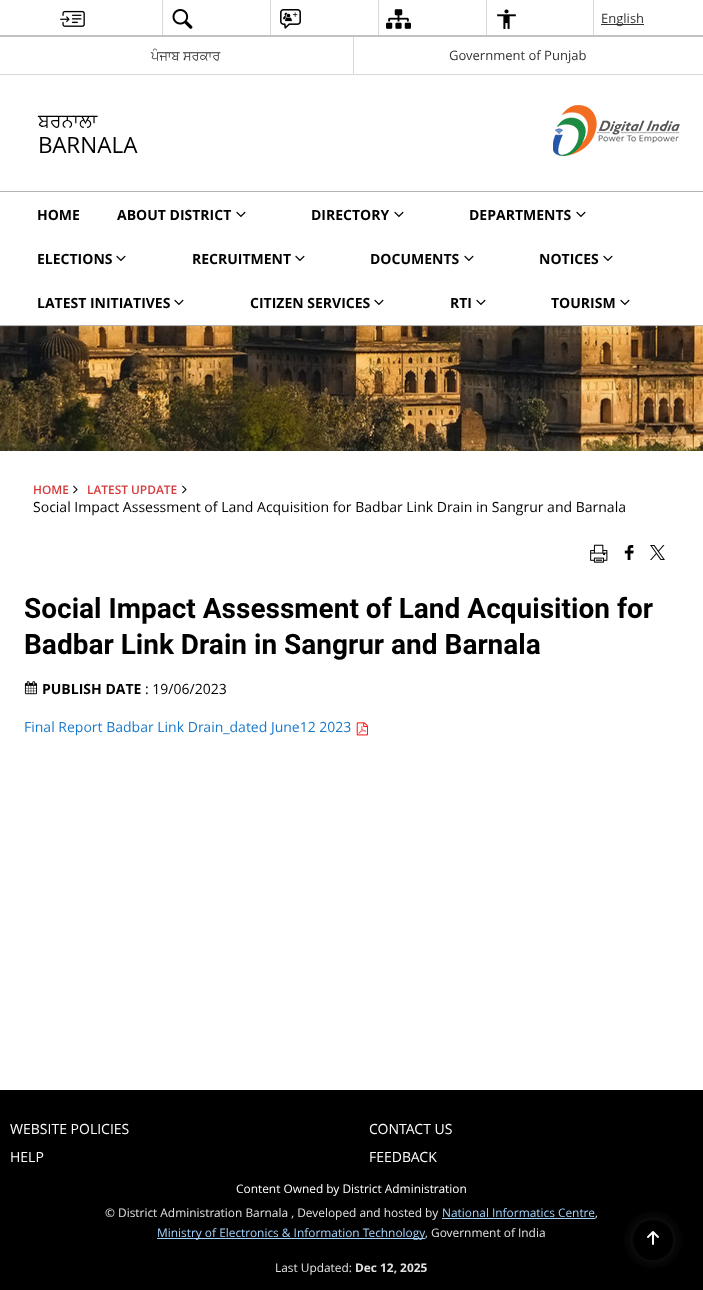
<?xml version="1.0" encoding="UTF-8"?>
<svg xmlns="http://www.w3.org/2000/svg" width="703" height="1290">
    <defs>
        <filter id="blur1" x="-50%" y="-200%" width="200%" height="500%"><feGaussianBlur stdDeviation="9.5"/></filter>
    </defs>
    <rect width="100%" height="100%" fill="#FFFFFF"/>
    <rect x="0" y="74" width="703" height="1" fill="#D8D8D8"/>
    <image x="60" y="10" width="25" height="17" href="img_01.png"/>
    <rect x="162" y="0" width="1" height="37" fill="#D8D8D8"/>
    <image x="172" y="9" width="21" height="20" href="img_02.png"/>
    <rect x="270" y="0" width="1" height="37" fill="#D8D8D8"/>
    <image x="280" y="9" width="21" height="20" href="img_03.png"/>
    <rect x="378" y="0" width="1" height="37" fill="#D8D8D8"/>
    <image x="386" y="9" width="25" height="20" href="img_04.png"/>
    <rect x="486" y="0" width="1" height="37" fill="#D8D8D8"/>
    <image x="497" y="9" width="19" height="20" href="img_05.png"/>
    <rect x="593" y="0" width="1" height="37" fill="#D8D8D8"/>
    <rect x="601" y="24" width="43" height="1" fill="#333333"/>
    <text x="601" y="23" font-family="Open Sans" font-size="13" fill="#333333">English</text>
    <text x="151" y="60" font-family="FreeSans" font-size="13" fill="#333333">ਪੰਜਾਬ ਸਰਕਾਰ</text>
    <rect x="353" y="37" width="1" height="37" fill="#D8D8D8"/>
    <text x="449" y="60" font-family="Open Sans" font-size="13" fill="#333333">Government of Punjab</text>
    <rect x="0" y="35" width="703" height="2" fill="#C2C0C1"/>
    <text x="38" y="127" font-family="FreeSans" font-size="19" fill="#000000">ਬਰਨਾਲਾ</text>
    <text x="38" y="153" font-family="Open Sans" font-size="22.5" fill="#000000">BARNALA</text>
    <image x="553" y="105" width="127" height="51" href="img_06.png"/>
    <rect x="0" y="191" width="703" height="1" fill="#B3B3B3"/>
    <rect x="0" y="325" width="703" height="1" fill="#B3B3B3"/>
    <text x="37" y="220" font-family="Open Sans" font-size="14" font-weight="700" fill="#000000">HOME</text>
    <text x="117" y="220" font-family="Open Sans" font-size="14" font-weight="700" fill="#000000">ABOUT DISTRICT</text>
    <image x="236" y="211" width="10" height="7" href="img_07.png"/>
    <text x="311" y="220" font-family="Open Sans" font-size="14" font-weight="700" fill="#000000">DIRECTORY</text>
    <image x="394" y="211" width="10" height="7" href="img_07.png"/>
    <text x="469" y="220" font-family="Open Sans" font-size="14" font-weight="700" fill="#000000">DEPARTMENTS</text>
    <image x="576" y="211" width="10" height="7" href="img_07.png"/>
    <text x="37" y="264" font-family="Open Sans" font-size="14" font-weight="700" fill="#000000">ELECTIONS</text>
    <image x="116" y="255" width="10" height="7" href="img_07.png"/>
    <text x="192" y="264" font-family="Open Sans" font-size="14" font-weight="700" fill="#000000">RECRUITMENT</text>
    <image x="295" y="255" width="10" height="7" href="img_07.png"/>
    <text x="370" y="264" font-family="Open Sans" font-size="14" font-weight="700" fill="#000000">DOCUMENTS</text>
    <image x="464" y="255" width="10" height="7" href="img_07.png"/>
    <text x="539" y="264" font-family="Open Sans" font-size="14" font-weight="700" fill="#000000">NOTICES</text>
    <image x="603" y="255" width="10" height="7" href="img_07.png"/>
    <text x="37" y="308" font-family="Open Sans" font-size="14" font-weight="700" fill="#000000">LATEST INITIATIVES</text>
    <image x="174" y="299" width="10" height="7" href="img_07.png"/>
    <text x="250" y="308" font-family="Open Sans" font-size="14" font-weight="700" fill="#000000">CITIZEN SERVICES</text>
    <image x="374" y="299" width="10" height="7" href="img_07.png"/>
    <text x="450" y="308" font-family="Open Sans" font-size="14" font-weight="700" fill="#000000">RTI</text>
    <image x="476" y="299" width="10" height="7" href="img_07.png"/>
    <text x="551" y="308" font-family="Open Sans" font-size="14" font-weight="700" fill="#000000">TOURISM</text>
    <image x="620" y="299" width="10" height="7" href="img_07.png"/>
    <image x="0" y="326" width="703" height="125" href="img_08.png"/>
    <text x="33" y="494" font-family="Open Sans" font-size="11.9" font-weight="600" fill="#D43C3C">HOME</text>
    <image x="73" y="485" width="5" height="9" href="img_09.png"/>
    <text x="87" y="494" font-family="Open Sans" font-size="11.9" font-weight="600" fill="#D43C3C">LATEST UPDATE</text>
    <image x="182" y="485" width="5" height="9" href="img_09.png"/>
    <text x="33" y="512" font-family="Open Sans" font-size="14" fill="#000000">Social Impact Assessment of Land Acquisition for Badbar Link Drain in Sangrur and Barnala</text>
    <image x="590" y="544" width="18" height="19" href="img_10.png"/>
    <image x="624" y="545" width="10" height="15" href="img_11.png"/>
    <image x="650" y="545" width="15" height="15" href="img_12.png"/>
    <text font-family="Roboto" font-size="28" font-weight="700" fill="#000000">
        <tspan x="24" y="618">Social Impact Assessment of Land Acquisition for</tspan>
        <tspan x="24" y="654">Badbar Link Drain in Sangrur and Barnala</tspan>
    </text>
    <image x="24" y="681" width="13" height="14" href="img_13.png"/>
    <text x="42" y="694" font-family="Open Sans" font-size="14" font-weight="700" fill="#000000">PUBLISH DATE</text>
    <text x="145" y="694" font-family="Open Sans" font-size="14" fill="#000000">: 19/06/2023</text>
    <text x="24" y="732" font-family="Open Sans" font-size="14" fill="#1B79CA">Final Report Badbar Link Drain_dated June12 2023</text>
    <image x="356" y="722" width="12" height="14" href="img_14.png"/>
    <rect x="0" y="1090" width="703" height="200" fill="#000000"/>
    <text x="10" y="1134" font-family="Open Sans" font-size="14" fill="#FFFFFF">WEBSITE POLICIES</text>
    <text x="369" y="1134" font-family="Open Sans" font-size="14" fill="#FFFFFF">CONTACT US</text>
    <text x="10" y="1162" font-family="Open Sans" font-size="14" fill="#FFFFFF">HELP</text>
    <text x="369" y="1162" font-family="Open Sans" font-size="14" fill="#FFFFFF">FEEDBACK</text>
    <text x="236" y="1193" font-family="Open Sans" font-size="11.9" fill="#FFFFFF">Content Owned by District Administration</text>
    <text x="105" y="1217" font-family="Open Sans" font-size="11.9" fill="#E1E1E1">© District Administration Barnala , Developed and hosted by</text>
    <text x="442" y="1217" font-family="Open Sans" font-size="11.9" fill="#A3D2F9">National Informatics Centre</text>
    <rect x="442" y="1218" width="153" height="1" fill="#A3D2F9"/>
    <text x="595" y="1217" font-family="Open Sans" font-size="11.9" fill="#E1E1E1">,</text>
    <rect x="157" y="1238" width="268" height="1" fill="#A3D2F9"/>
    <text x="157" y="1237" font-family="Open Sans" font-size="11.9" fill="#A3D2F9">Ministry of Electronics &amp; Information Technology</text>
    <text x="425" y="1237" font-family="Open Sans" font-size="11.9" fill="#E1E1E1">, Government of India</text>
    <text x="275" y="1272" font-family="Open Sans" font-size="11.9" fill="#E1E1E1">Last Updated:</text>
    <text x="355" y="1272" font-family="Open Sans" font-size="11.9" font-weight="700" fill="#E1E1E1">Dec 12, 2025</text>
    <rect x="638" y="1225" width="30" height="30" rx="15" fill="#3C3C3C" filter="url(#blur1)"/>
    <circle cx="653" cy="1240" r="20" fill="#000000"/>
    <image x="647" y="1231" width="12" height="14" href="img_15.png"/>
</svg>
